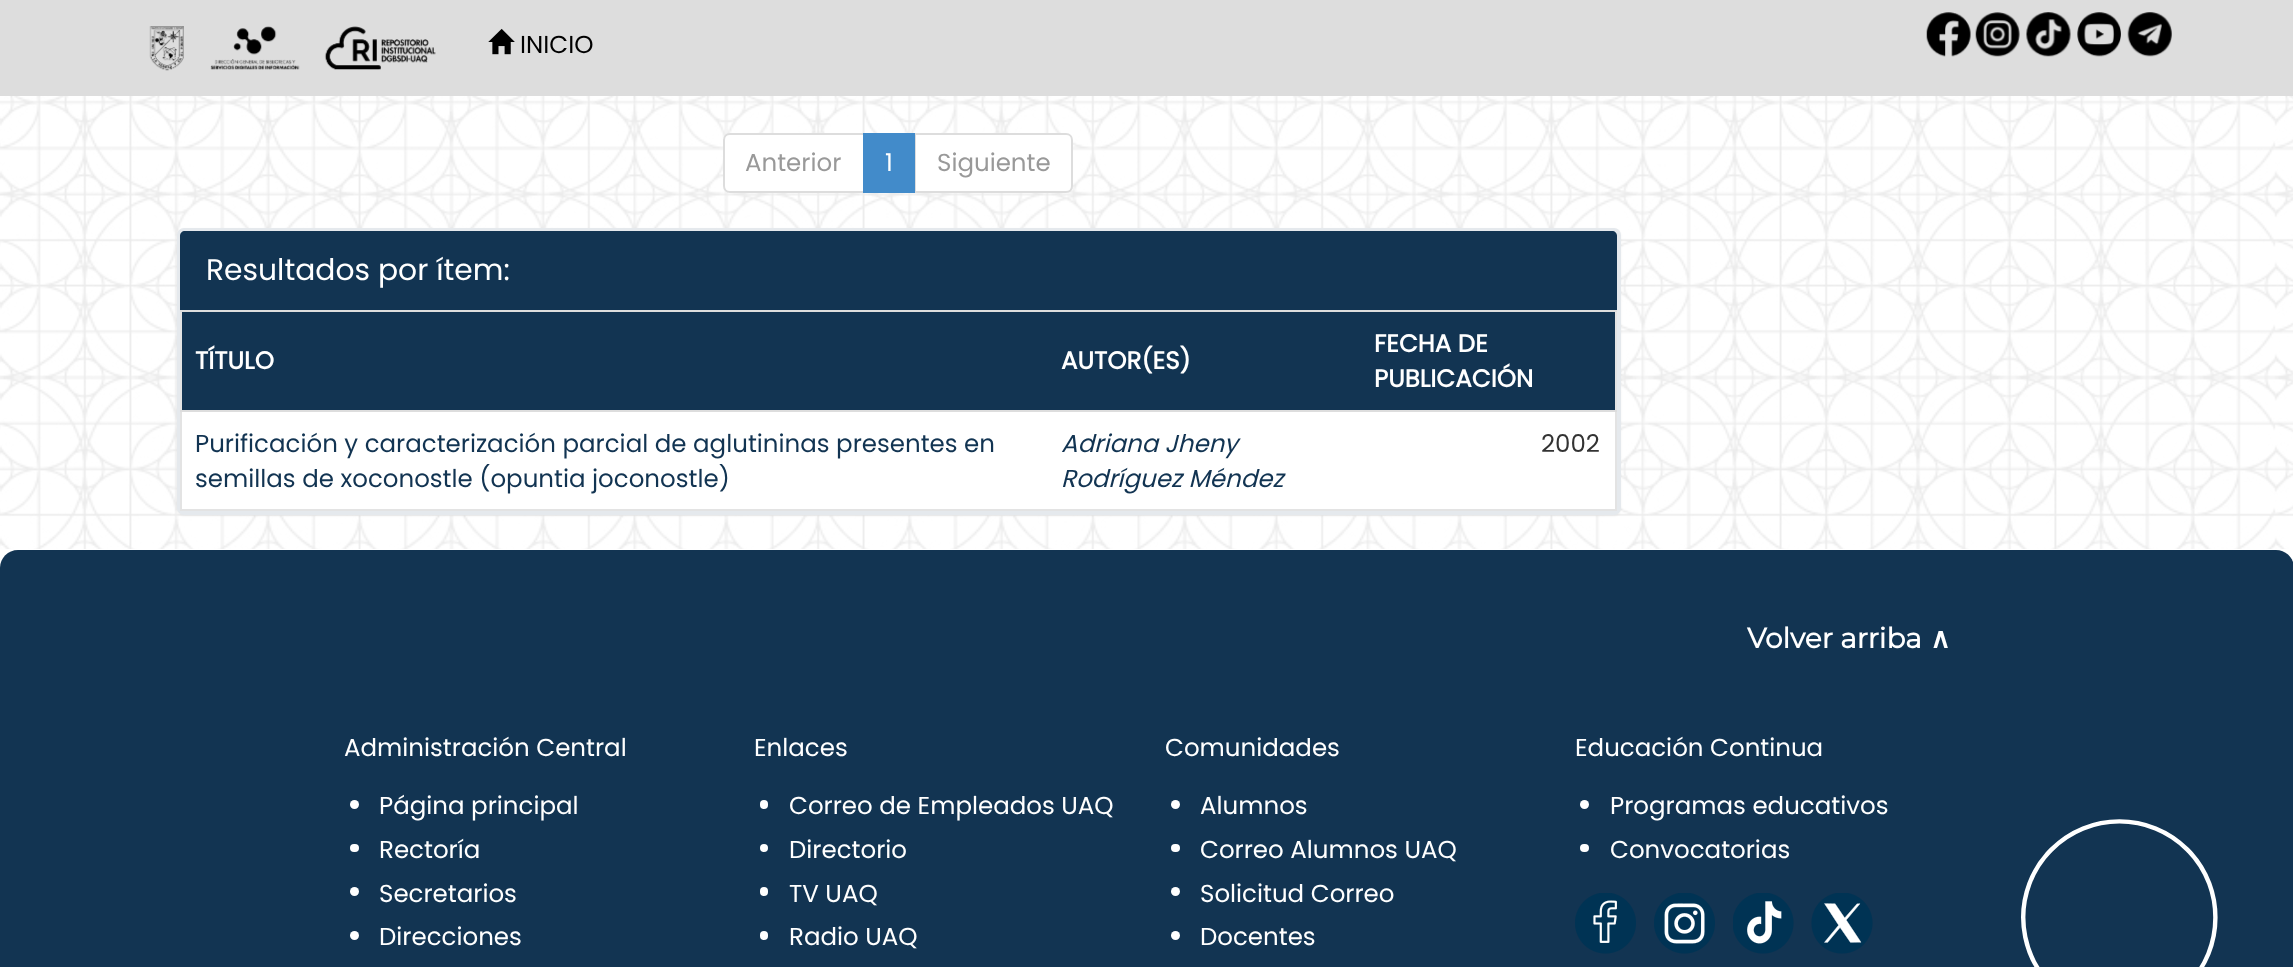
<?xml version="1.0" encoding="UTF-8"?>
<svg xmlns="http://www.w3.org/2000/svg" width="2293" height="967">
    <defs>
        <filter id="blur1" x="-50%" y="-200%" width="200%" height="500%"><feGaussianBlur stdDeviation="1"/></filter>
    </defs>
    <rect width="100%" height="100%" fill="#FFFFFF"/>
    <rect x="0" y="0" width="2293" height="96" fill="#DDDDDD"/>
    <image x="149" y="26" width="35" height="45" href="img_01.png"/>
    <image x="210" y="26" width="90" height="44" href="img_02.png"/>
    <image x="324" y="26" width="112" height="44" href="img_03.png"/>
    <image x="488" y="28" width="27" height="27" href="img_04.png"/>
    <text x="520" y="53" font-family="Poppins" font-size="24.5" fill="#000000">INICIO</text>
    <image x="1926" y="12" width="45" height="45" href="img_05.png"/>
    <image x="1975" y="12" width="45" height="45" href="img_06.png"/>
    <image x="2026" y="12" width="45" height="45" href="img_07.png"/>
    <image x="2077" y="12" width="44" height="45" href="img_08.png"/>
    <image x="2127" y="12" width="45" height="45" href="img_09.png"/>
    <image x="0" y="96" width="2293" height="453" href="img_10.png"/>
    <path d="M 730 134 H 864 V 192 H 730 C 726.5 192 724 189.5 724 186 V 140 C 724 136.5 726.5 134 730 134 Z" fill="#FFFFFF" stroke="#DDDDDD" stroke-width="2"/>
    <text x="745" y="171" font-family="Poppins" font-size="24.5" fill="#999999">Anterior</text>
    <path d="M 915 134 H 1066 C 1069.5 134 1072 136.5 1072 140 V 186 C 1072 189.5 1069.5 192 1066 192 H 915 Z" fill="#FFFFFF" stroke="#DDDDDD" stroke-width="2"/>
    <rect x="863" y="133" width="52" height="60" fill="#428BCA"/>
    <text x="885" y="171" font-family="Poppins" font-size="24.5" fill="#FFFFFF">1</text>
    <text x="937" y="171" font-family="Poppins" font-size="24.5" fill="#999999">Siguiente</text>
    <rect x="177" y="229" width="1444" height="287" rx="7" fill="#000000" fill-opacity="0.05" filter="url(#blur1)"/>
    <rect x="179" y="230" width="1440" height="283" rx="5" fill="#FFFFFF" stroke="#E5E9ED" stroke-width="4"/>
    <path d="M 185 231 H 1612 C 1615 231 1617 233 1617 236 V 310 H 180 V 236 C 180 233 182 231 185 231 Z" fill="#123452"/>
    <text x="206" y="280" font-family="Poppins" font-size="29.75" fill="#FFFFFF">Resultados por ítem:</text>
    <rect x="1615" y="310" width="2" height="201" fill="#E3E3E3"/>
    <rect x="180" y="509" width="1437" height="2" fill="#E3E3E3"/>
    <rect x="180" y="310" width="2" height="201" fill="#E3E3E3"/>
    <rect x="182" y="312" width="1433" height="98" fill="#123452"/>
    <text x="195" y="369" font-family="Poppins" font-size="24.5" font-weight="700" fill="#FFFFFF">TÍTULO</text>
    <text x="1061" y="369" font-family="Poppins" font-size="24.5" font-weight="700" fill="#FFFFFF">AUTOR(ES)</text>
    <rect x="180" y="310" width="1437" height="2" fill="#DDDDDD"/>
    <text font-family="Poppins" font-size="24.5" font-weight="700" fill="#FFFFFF">
        <tspan x="1374" y="352">FECHA DE</tspan>
        <tspan x="1374" y="387">PUBLICACIÓN</tspan>
    </text>
    <text font-family="Poppins" font-size="24.5" fill="#123452">
        <tspan x="195" y="452">Purificación y caracterización parcial de aglutininas presentes en</tspan>
        <tspan x="195" y="487">semillas de xoconostle (opuntia joconostle)</tspan>
    </text>
    <text font-family="Poppins" font-size="24.5" font-style="italic" fill="#123452">
        <tspan x="1061" y="452">Adriana Jheny</tspan>
        <tspan x="1061" y="487">Rodríguez Méndez</tspan>
    </text>
    <rect x="180" y="410" width="1437" height="2" fill="#DDDDDD"/>
    <text x="1541" y="452" font-family="Poppins" font-size="24.5" fill="#333333">2002</text>
    <path d="M 18 550 H 2276 C 2286 550 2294 558 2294 568 V 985 H 0 V 568 C 0 558 8 550 18 550 Z" fill="#123452"/>
    <image x="2021" y="819" width="197" height="148" href="img_11.png"/>
    <text x="1747" y="648" font-family="Montserrat" font-size="28" font-weight="700" fill="#FFFFFF">Volver arriba</text>
    <text x="1930" y="648" font-family="DejaVu Sans" font-size="28" font-weight="700" fill="#FFFFFF">∧</text>
    <text x="344" y="756" font-family="Poppins" font-size="24.5" fill="#FFFFFF">Administración Central</text>
    <circle cx="354.5" cy="804.5" r="4.5" fill="#FFFFFF"/>
    <text x="379" y="814" font-family="Poppins" font-size="24.5" fill="#FFFFFF">Página principal</text>
    <rect x="350" y="844" width="9" height="8" rx="4" fill="#FFFFFF"/>
    <text x="379" y="858" font-family="Poppins" font-size="24.5" fill="#FFFFFF">Rectoría</text>
    <circle cx="354.5" cy="891.5" r="4.5" fill="#FFFFFF"/>
    <text x="379" y="902" font-family="Poppins" font-size="24.5" fill="#FFFFFF">Secretarios</text>
    <circle cx="354.5" cy="935.5" r="4.5" fill="#FFFFFF"/>
    <text x="379" y="945" font-family="Poppins" font-size="24.5" fill="#FFFFFF">Direcciones</text>
    <text x="754" y="756" font-family="Poppins" font-size="24.5" fill="#FFFFFF">Enlaces</text>
    <rect x="760" y="800" width="8" height="9" rx="4" fill="#FFFFFF"/>
    <text x="789" y="814" font-family="Poppins" font-size="24.5" fill="#FFFFFF">Correo de Empleados UAQ</text>
    <circle cx="764" cy="848" r="4" fill="#FFFFFF"/>
    <text x="789" y="858" font-family="Poppins" font-size="24.5" fill="#FFFFFF">Directorio</text>
    <rect x="760" y="887" width="8" height="9" rx="4" fill="#FFFFFF"/>
    <text x="789" y="902" font-family="Poppins" font-size="24.5" fill="#FFFFFF">TV UAQ</text>
    <rect x="760" y="931" width="8" height="9" rx="4" fill="#FFFFFF"/>
    <text x="789" y="945" font-family="Poppins" font-size="24.5" fill="#FFFFFF">Radio UAQ</text>
    <text x="1165" y="756" font-family="Poppins" font-size="24.5" fill="#FFFFFF">Comunidades</text>
    <circle cx="1175.5" cy="804.5" r="4.5" fill="#FFFFFF"/>
    <text x="1200" y="814" font-family="Poppins" font-size="24.5" fill="#FFFFFF">Alumnos</text>
    <rect x="1171" y="844" width="9" height="8" rx="4" fill="#FFFFFF"/>
    <text x="1200" y="858" font-family="Poppins" font-size="24.5" fill="#FFFFFF">Correo Alumnos UAQ</text>
    <circle cx="1175.5" cy="891.5" r="4.5" fill="#FFFFFF"/>
    <text x="1200" y="902" font-family="Poppins" font-size="24.5" fill="#FFFFFF">Solicitud Correo</text>
    <circle cx="1175.5" cy="935.5" r="4.5" fill="#FFFFFF"/>
    <text x="1200" y="945" font-family="Poppins" font-size="24.5" fill="#FFFFFF">Docentes</text>
    <text x="1575" y="756" font-family="Poppins" font-size="24.5" fill="#FFFFFF">Educación Continua</text>
    <circle cx="1584.5" cy="804.5" r="4.5" fill="#FFFFFF"/>
    <text x="1610" y="814" font-family="Poppins" font-size="24.5" fill="#FFFFFF">Programas educativos</text>
    <rect x="1580" y="844" width="9" height="8" rx="4" fill="#FFFFFF"/>
    <text x="1610" y="858" font-family="Poppins" font-size="24.5" fill="#FFFFFF">Convocatorias</text>
    <image x="1575" y="893" width="61" height="61" href="img_12.png"/>
    <image x="1654" y="893" width="61" height="61" href="img_13.png"/>
    <image x="1733" y="893" width="61" height="61" href="img_14.png"/>
    <image x="1811" y="893" width="62" height="61" href="img_15.png"/>
</svg>
